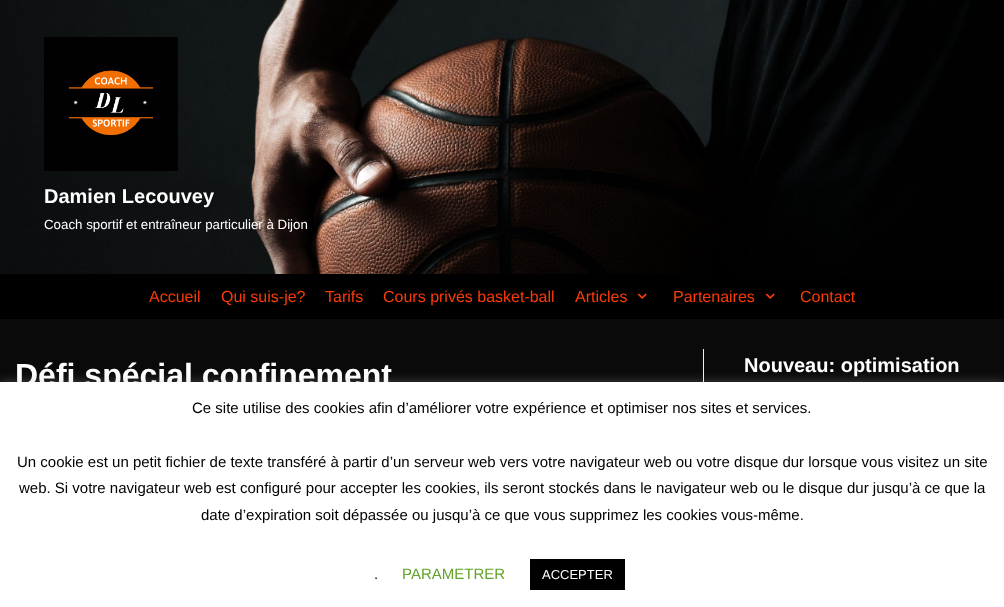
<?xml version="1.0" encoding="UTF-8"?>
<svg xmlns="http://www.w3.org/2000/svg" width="1004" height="607">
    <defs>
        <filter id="blur1" x="-50%" y="-200%" width="200%" height="500%"><feGaussianBlur stdDeviation="5"/></filter>
    </defs>
    <rect width="100%" height="100%" fill="#0A0A0A"/>
    <image x="0" y="0" width="1004" height="274" href="img_01.png"/>
    <image x="44" y="37" width="134" height="134" href="img_02.png"/>
    <text x="44" y="203" font-family="Liberation Sans" font-size="20" font-weight="700" fill="#FFFFFF">Damien Lecouvey</text>
    <text x="44" y="229" font-family="Liberation Sans" font-size="13.3" fill="#FFFFFF">Coach sportif et entraîneur particulier à Dijon</text>
    <rect x="0" y="274" width="1004" height="45" fill="#000000"/>
    <text x="149" y="302" font-family="Liberation Sans" font-size="16" fill="#FD3B06">Accueil</text>
    <text x="221" y="302" font-family="Liberation Sans" font-size="16" fill="#FD3B06">Qui suis-je?</text>
    <text x="325" y="302" font-family="Liberation Sans" font-size="16" fill="#FD3B06">Tarifs</text>
    <text x="383" y="302" font-family="Liberation Sans" font-size="16" fill="#FD3B06">Cours privés basket-ball</text>
    <text x="575" y="302" font-family="Liberation Sans" font-size="16" fill="#FD3B06">Articles</text>
    <image x="637" y="293" width="10" height="6" href="img_03.png"/>
    <text x="673" y="302" font-family="Liberation Sans" font-size="16" fill="#FD3B06">Partenaires</text>
    <image x="765" y="293" width="10" height="6" href="img_03.png"/>
    <text x="800" y="302" font-family="Liberation Sans" font-size="16" fill="#FD3B06">Contact</text>
    <text x="15" y="386" font-family="Liberation Sans" font-size="32" font-weight="700" fill="#FFFFFF">Défi spécial confinement</text>
    <rect x="703" y="349" width="1" height="33" fill="#F0F0F0"/>
    <text x="744" y="372" font-family="Liberation Sans" font-size="20" font-weight="700" fill="#FFFFFF">Nouveau: optimisation</text>
    <rect x="0" y="381" width="1004" height="225" fill="#ACABAB" fill-opacity="0.3" filter="url(#blur1)"/>
    <rect x="0" y="382" width="1004" height="225" fill="#FFFFFF"/>
    <text x="192" y="413" font-family="Liberation Sans" font-size="15" fill="#000000">Ce site utilise des cookies afin d’améliorer votre expérience et optimiser nos sites et services.</text>
    <text x="17" y="467" font-family="Liberation Sans" font-size="15" fill="#000000">Un cookie est un petit fichier de texte transféré à partir d’un serveur web vers votre navigateur web ou votre disque dur lorsque vous visitez un site</text>
    <text x="19" y="493" font-family="Liberation Sans" font-size="15" fill="#000000">web. Si votre navigateur web est configuré pour accepter les cookies, ils seront stockés dans le navigateur web ou le disque dur jusqu’à ce que la</text>
    <text x="201" y="520" font-family="Liberation Sans" font-size="15" fill="#000000">date d’expiration soit dépassée ou jusqu’à ce que vous supprimez les cookies vous-même.</text>
    <text x="374" y="579" font-family="Liberation Sans" font-size="15" fill="#000000">.</text>
    <text x="402" y="579" font-family="Liberation Sans" font-size="15" fill="#62A329">PARAMETRER</text>
    <rect x="530" y="559" width="95" height="31" fill="#000000"/>
    <text x="542" y="579" font-family="Liberation Sans" font-size="13" fill="#FFFFFF">ACCEPTER</text>
</svg>
